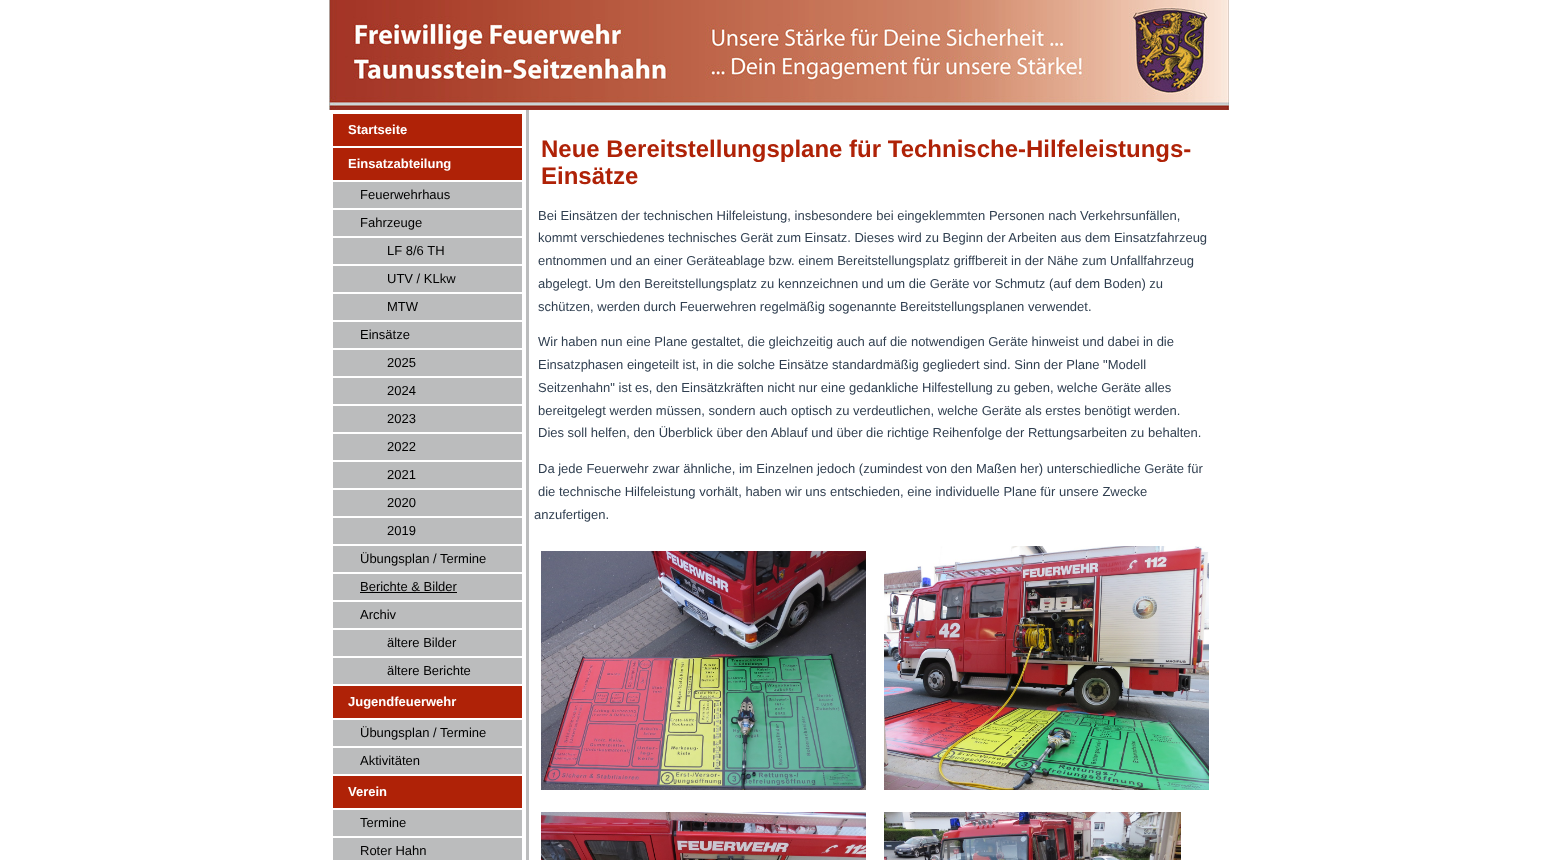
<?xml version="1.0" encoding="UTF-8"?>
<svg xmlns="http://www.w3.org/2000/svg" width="1558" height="860">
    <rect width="100%" height="100%" fill="#FFFFFF"/>
    <image x="329" y="0" width="900" height="110" href="img_01.png"/>
    <rect x="526" y="110" width="3" height="750" fill="#BBBCBD"/>
    <rect x="333" y="114" width="189" height="32" fill="#AF2207"/>
    <text x="348" y="134" font-family="Liberation Sans" font-size="13" font-weight="700" fill="#FFFFFF">Startseite</text>
    <rect x="333" y="148" width="189" height="32" fill="#AF2207"/>
    <text x="348" y="168" font-family="Liberation Sans" font-size="13" font-weight="700" fill="#FFFFFF">Einsatzabteilung</text>
    <rect x="333" y="182" width="189" height="26" fill="#BBBCBD"/>
    <text x="360" y="199" font-family="Liberation Sans" font-size="13" fill="#000000">Feuerwehrhaus</text>
    <rect x="333" y="210" width="189" height="26" fill="#BBBCBD"/>
    <text x="360" y="227" font-family="Liberation Sans" font-size="13" fill="#000000">Fahrzeuge</text>
    <rect x="333" y="238" width="189" height="26" fill="#BBBCBD"/>
    <text x="387" y="255" font-family="Liberation Sans" font-size="13" fill="#000000">LF 8/6 TH</text>
    <rect x="333" y="266" width="189" height="26" fill="#BBBCBD"/>
    <text x="387" y="283" font-family="Liberation Sans" font-size="13" fill="#000000">UTV / KLkw</text>
    <rect x="333" y="294" width="189" height="26" fill="#BBBCBD"/>
    <text x="387" y="311" font-family="Liberation Sans" font-size="13" fill="#000000">MTW</text>
    <rect x="333" y="322" width="189" height="26" fill="#BBBCBD"/>
    <text x="360" y="339" font-family="Liberation Sans" font-size="13" fill="#000000">Einsätze</text>
    <rect x="333" y="350" width="189" height="26" fill="#BBBCBD"/>
    <text x="387" y="367" font-family="Liberation Sans" font-size="13" fill="#000000">2025</text>
    <rect x="333" y="378" width="189" height="26" fill="#BBBCBD"/>
    <text x="387" y="395" font-family="Liberation Sans" font-size="13" fill="#000000">2024</text>
    <rect x="333" y="406" width="189" height="26" fill="#BBBCBD"/>
    <text x="387" y="423" font-family="Liberation Sans" font-size="13" fill="#000000">2023</text>
    <rect x="333" y="434" width="189" height="26" fill="#BBBCBD"/>
    <text x="387" y="451" font-family="Liberation Sans" font-size="13" fill="#000000">2022</text>
    <rect x="333" y="462" width="189" height="26" fill="#BBBCBD"/>
    <text x="387" y="479" font-family="Liberation Sans" font-size="13" fill="#000000">2021</text>
    <rect x="333" y="490" width="189" height="26" fill="#BBBCBD"/>
    <text x="387" y="507" font-family="Liberation Sans" font-size="13" fill="#000000">2020</text>
    <rect x="333" y="518" width="189" height="26" fill="#BBBCBD"/>
    <text x="387" y="535" font-family="Liberation Sans" font-size="13" fill="#000000">2019</text>
    <rect x="333" y="546" width="189" height="26" fill="#BBBCBD"/>
    <text x="360" y="563" font-family="Liberation Sans" font-size="13" fill="#000000">Übungsplan / Termine</text>
    <rect x="333" y="574" width="189" height="26" fill="#BBBCBD"/>
    <text x="360" y="591" font-family="Liberation Sans" font-size="13" fill="#000000">Berichte &amp; Bilder</text>
    <rect x="360" y="592" width="97" height="1" fill="#000000"/>
    <rect x="333" y="602" width="189" height="26" fill="#BBBCBD"/>
    <text x="360" y="619" font-family="Liberation Sans" font-size="13" fill="#000000">Archiv</text>
    <rect x="333" y="630" width="189" height="26" fill="#BBBCBD"/>
    <text x="387" y="647" font-family="Liberation Sans" font-size="13" fill="#000000">ältere Bilder</text>
    <rect x="333" y="658" width="189" height="26" fill="#BBBCBD"/>
    <text x="387" y="675" font-family="Liberation Sans" font-size="13" fill="#000000">ältere Berichte</text>
    <rect x="333" y="686" width="189" height="32" fill="#AF2207"/>
    <text x="348" y="706" font-family="Liberation Sans" font-size="13" font-weight="700" fill="#FFFFFF">Jugendfeuerwehr</text>
    <rect x="333" y="720" width="189" height="26" fill="#BBBCBD"/>
    <text x="360" y="737" font-family="Liberation Sans" font-size="13" fill="#000000">Übungsplan / Termine</text>
    <rect x="333" y="748" width="189" height="26" fill="#BBBCBD"/>
    <text x="360" y="765" font-family="Liberation Sans" font-size="13" fill="#000000">Aktivitäten</text>
    <rect x="333" y="776" width="189" height="32" fill="#AF2207"/>
    <text x="348" y="796" font-family="Liberation Sans" font-size="13" font-weight="700" fill="#FFFFFF">Verein</text>
    <rect x="333" y="810" width="189" height="26" fill="#BBBCBD"/>
    <text x="360" y="827" font-family="Liberation Sans" font-size="13" fill="#000000">Termine</text>
    <rect x="333" y="838" width="189" height="22" fill="#BBBCBD"/>
    <text x="360" y="855" font-family="Liberation Sans" font-size="13" fill="#000000">Roter Hahn</text>
    <text font-family="Liberation Sans" font-size="24" font-weight="700" fill="#AF2207">
        <tspan x="541" y="157">Neue Bereitstellungsplane für Technische-Hilfeleistungs-</tspan>
        <tspan x="541" y="184">Einsätze</tspan>
    </text>
    <text font-family="Liberation Sans" font-size="13" fill="#303F50">
        <tspan x="538" y="220">Bei Einsätzen der technischen Hilfeleistung, insbesondere bei eingeklemmten Personen nach Verkehrsunfällen,</tspan>
        <tspan x="538" y="242">kommt verschiedenes technisches Gerät zum Einsatz. Dieses wird zu Beginn der Arbeiten aus dem Einsatzfahrzeug</tspan>
        <tspan x="538" y="265">entnommen und an einer Geräteablage bzw. einem Bereitstellungsplatz griffbereit in der Nähe zum Unfallfahrzeug</tspan>
        <tspan x="538" y="288">abgelegt. Um den Bereitstellungsplatz zu kennzeichnen und um die Geräte vor Schmutz (auf dem Boden) zu</tspan>
        <tspan x="538" y="311">schützen, werden durch Feuerwehren regelmäßig sogenannte Bereitstellungsplanen verwendet.</tspan>
    </text>
    <text font-family="Liberation Sans" font-size="13" fill="#303F50">
        <tspan x="538" y="346">Wir haben nun eine Plane gestaltet, die gleichzeitig auch auf die notwendigen Geräte hinweist und dabei in die</tspan>
        <tspan x="538" y="369">Einsatzphasen eingeteilt ist, in die solche Einsätze standardmäßig gegliedert sind. Sinn der Plane "Modell</tspan>
        <tspan x="538" y="392">Seitzenhahn" ist es, den Einsätzkräften nicht nur eine gedankliche Hilfestellung zu geben, welche Geräte alles</tspan>
        <tspan x="538" y="415">bereitgelegt werden müssen, sondern auch optisch zu verdeutlichen, welche Geräte als erstes benötigt werden.</tspan>
        <tspan x="538" y="437">Dies soll helfen, den Überblick über den Ablauf und über die richtige Reihenfolge der Rettungsarbeiten zu behalten.</tspan>
    </text>
    <text font-family="Liberation Sans" font-size="13" fill="#303F50">
        <tspan x="538" y="473">Da jede Feuerwehr zwar ähnliche, im Einzelnen jedoch (zumindest von den Maßen her) unterschiedliche Geräte für</tspan>
        <tspan x="538" y="496">die technische Hilfeleistung vorhält, haben wir uns entschieden, eine individuelle Plane für unsere Zwecke</tspan>
    </text>
    <text x="534" y="519" font-family="Liberation Sans" font-size="13" fill="#303F50">anzufertigen.</text>
    <image x="541" y="551" width="325" height="239" href="img_02.png"/>
    <image x="884" y="546" width="325" height="244" href="img_03.png"/>
    <image x="541" y="812" width="325" height="48" href="img_04.png"/>
    <image x="884" y="812" width="297" height="48" href="img_05.png"/>
</svg>
